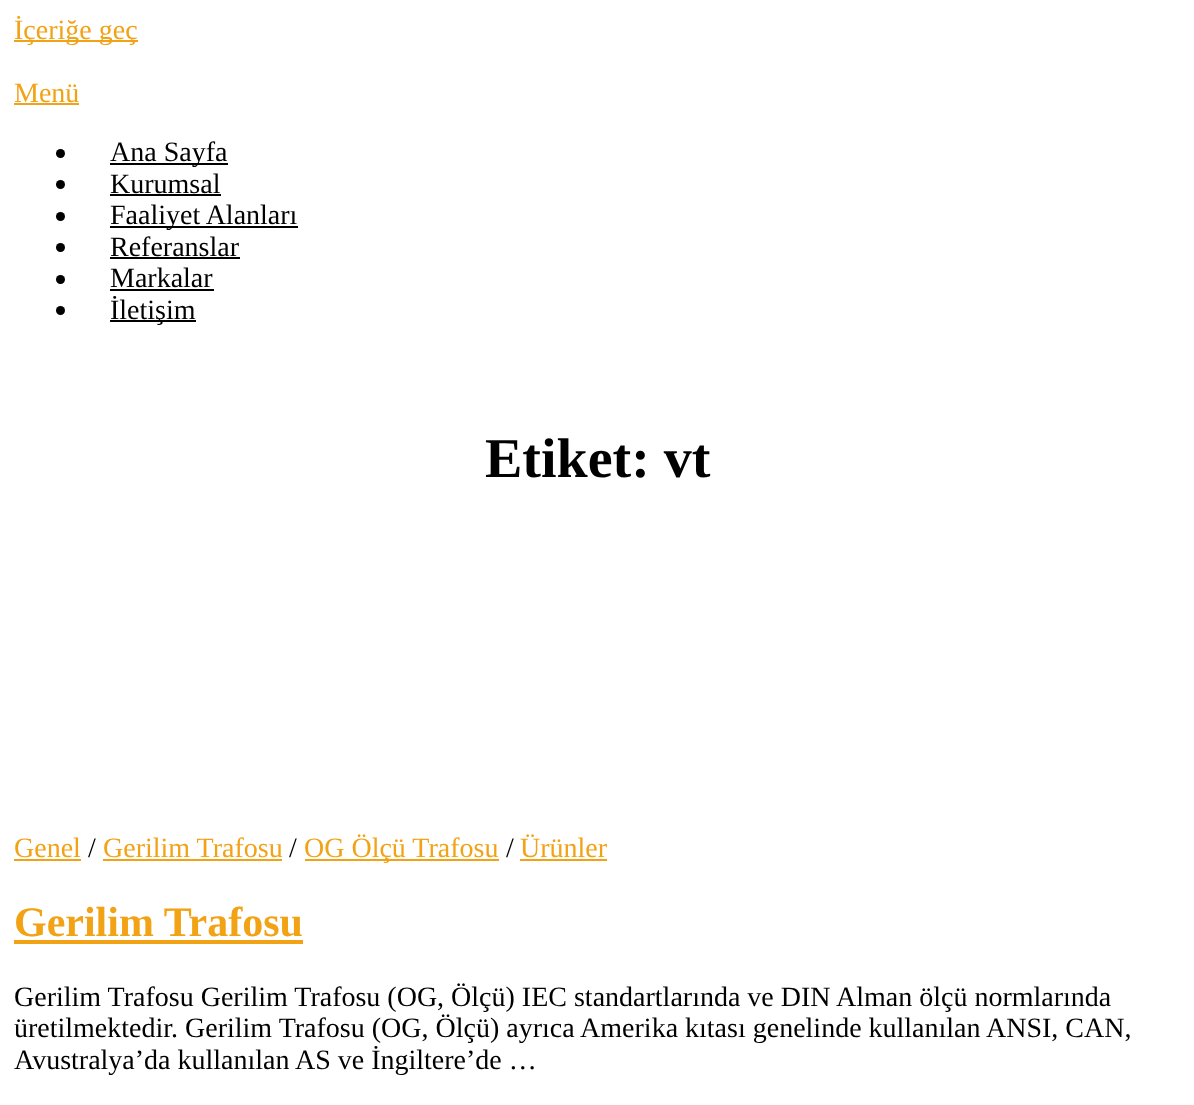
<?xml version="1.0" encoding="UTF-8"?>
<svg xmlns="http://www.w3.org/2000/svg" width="1194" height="1105">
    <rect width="100%" height="100%" fill="#FFFFFF"/>
    <rect x="14" y="40" width="124" height="2" fill="#F2A215"/>
    <text x="14" y="39" font-family="Liberation Serif" font-size="28" fill="#F2A215">İçeriğe geç</text>
    <text x="14" y="102" font-family="Liberation Serif" font-size="28" fill="#F2A215">Menü</text>
    <rect x="14" y="103" width="65" height="2" fill="#F2A215"/>
    <circle cx="60.5" cy="153.5" r="4.5" fill="#000000"/>
    <rect x="110" y="163" width="118" height="2" fill="#000000"/>
    <text x="110" y="161" font-family="Liberation Serif" font-size="28" fill="#000000">Ana Sayfa</text>
    <circle cx="60.5" cy="184.5" r="4.5" fill="#000000"/>
    <text x="110" y="193" font-family="Liberation Serif" font-size="28" fill="#000000">Kurumsal</text>
    <rect x="110" y="194" width="111" height="2" fill="#000000"/>
    <circle cx="60.5" cy="216.5" r="4.5" fill="#000000"/>
    <rect x="110" y="226" width="188" height="2" fill="#000000"/>
    <text x="110" y="224" font-family="Liberation Serif" font-size="28" fill="#000000">Faaliyet Alanları</text>
    <circle cx="60.5" cy="247.5" r="4.5" fill="#000000"/>
    <text x="110" y="256" font-family="Liberation Serif" font-size="28" fill="#000000">Referanslar</text>
    <rect x="110" y="257" width="130" height="2" fill="#000000"/>
    <circle cx="60.5" cy="279.5" r="4.5" fill="#000000"/>
    <text x="110" y="287" font-family="Liberation Serif" font-size="28" fill="#000000">Markalar</text>
    <rect x="110" y="289" width="104" height="2" fill="#000000"/>
    <circle cx="60.5" cy="310.5" r="4.5" fill="#000000"/>
    <rect x="110" y="320" width="86" height="2" fill="#000000"/>
    <text x="110" y="319" font-family="Liberation Serif" font-size="28" fill="#000000">İletişim</text>
    <text x="485" y="477" font-family="Liberation Serif" font-size="56" font-weight="700" fill="#000000">Etiket: vt</text>
    <text x="14" y="857" font-family="Liberation Serif" font-size="28" fill="#F2A215">Genel</text>
    <rect x="14" y="859" width="67" height="2" fill="#F2A215"/>
    <text x="88" y="857" font-family="Liberation Serif" font-size="28" fill="#000000">/</text>
    <text x="103" y="857" font-family="Liberation Serif" font-size="28" fill="#F2A215">Gerilim Trafosu</text>
    <rect x="103" y="859" width="179" height="2" fill="#F2A215"/>
    <text x="289" y="857" font-family="Liberation Serif" font-size="28" fill="#000000">/</text>
    <rect x="305" y="859" width="194" height="2" fill="#F2A215"/>
    <text x="304" y="857" font-family="Liberation Serif" font-size="28" fill="#F2A215">OG Ölçü Trafosu</text>
    <text x="506" y="857" font-family="Liberation Serif" font-size="28" fill="#000000">/</text>
    <text x="520" y="857" font-family="Liberation Serif" font-size="28" fill="#F2A215">Ürünler</text>
    <rect x="520" y="859" width="87" height="2" fill="#F2A215"/>
    <text x="14" y="936" font-family="Liberation Serif" font-size="42" font-weight="700" fill="#F2A215">Gerilim Trafosu</text>
    <rect x="14" y="940" width="289" height="4" fill="#F2A215"/>
    <text font-family="Liberation Serif" font-size="28" fill="#000000">
        <tspan x="14" y="1006">Gerilim Trafosu Gerilim Trafosu (OG, Ölçü) IEC standartlarında ve DIN Alman ölçü normlarında</tspan>
        <tspan x="14" y="1037">üretilmektedir. Gerilim Trafosu (OG, Ölçü) ayrıca Amerika kıtası genelinde kullanılan ANSI, CAN,</tspan>
        <tspan x="14" y="1069">Avustralya’da kullanılan AS ve İngiltere’de …</tspan>
    </text>
</svg>
